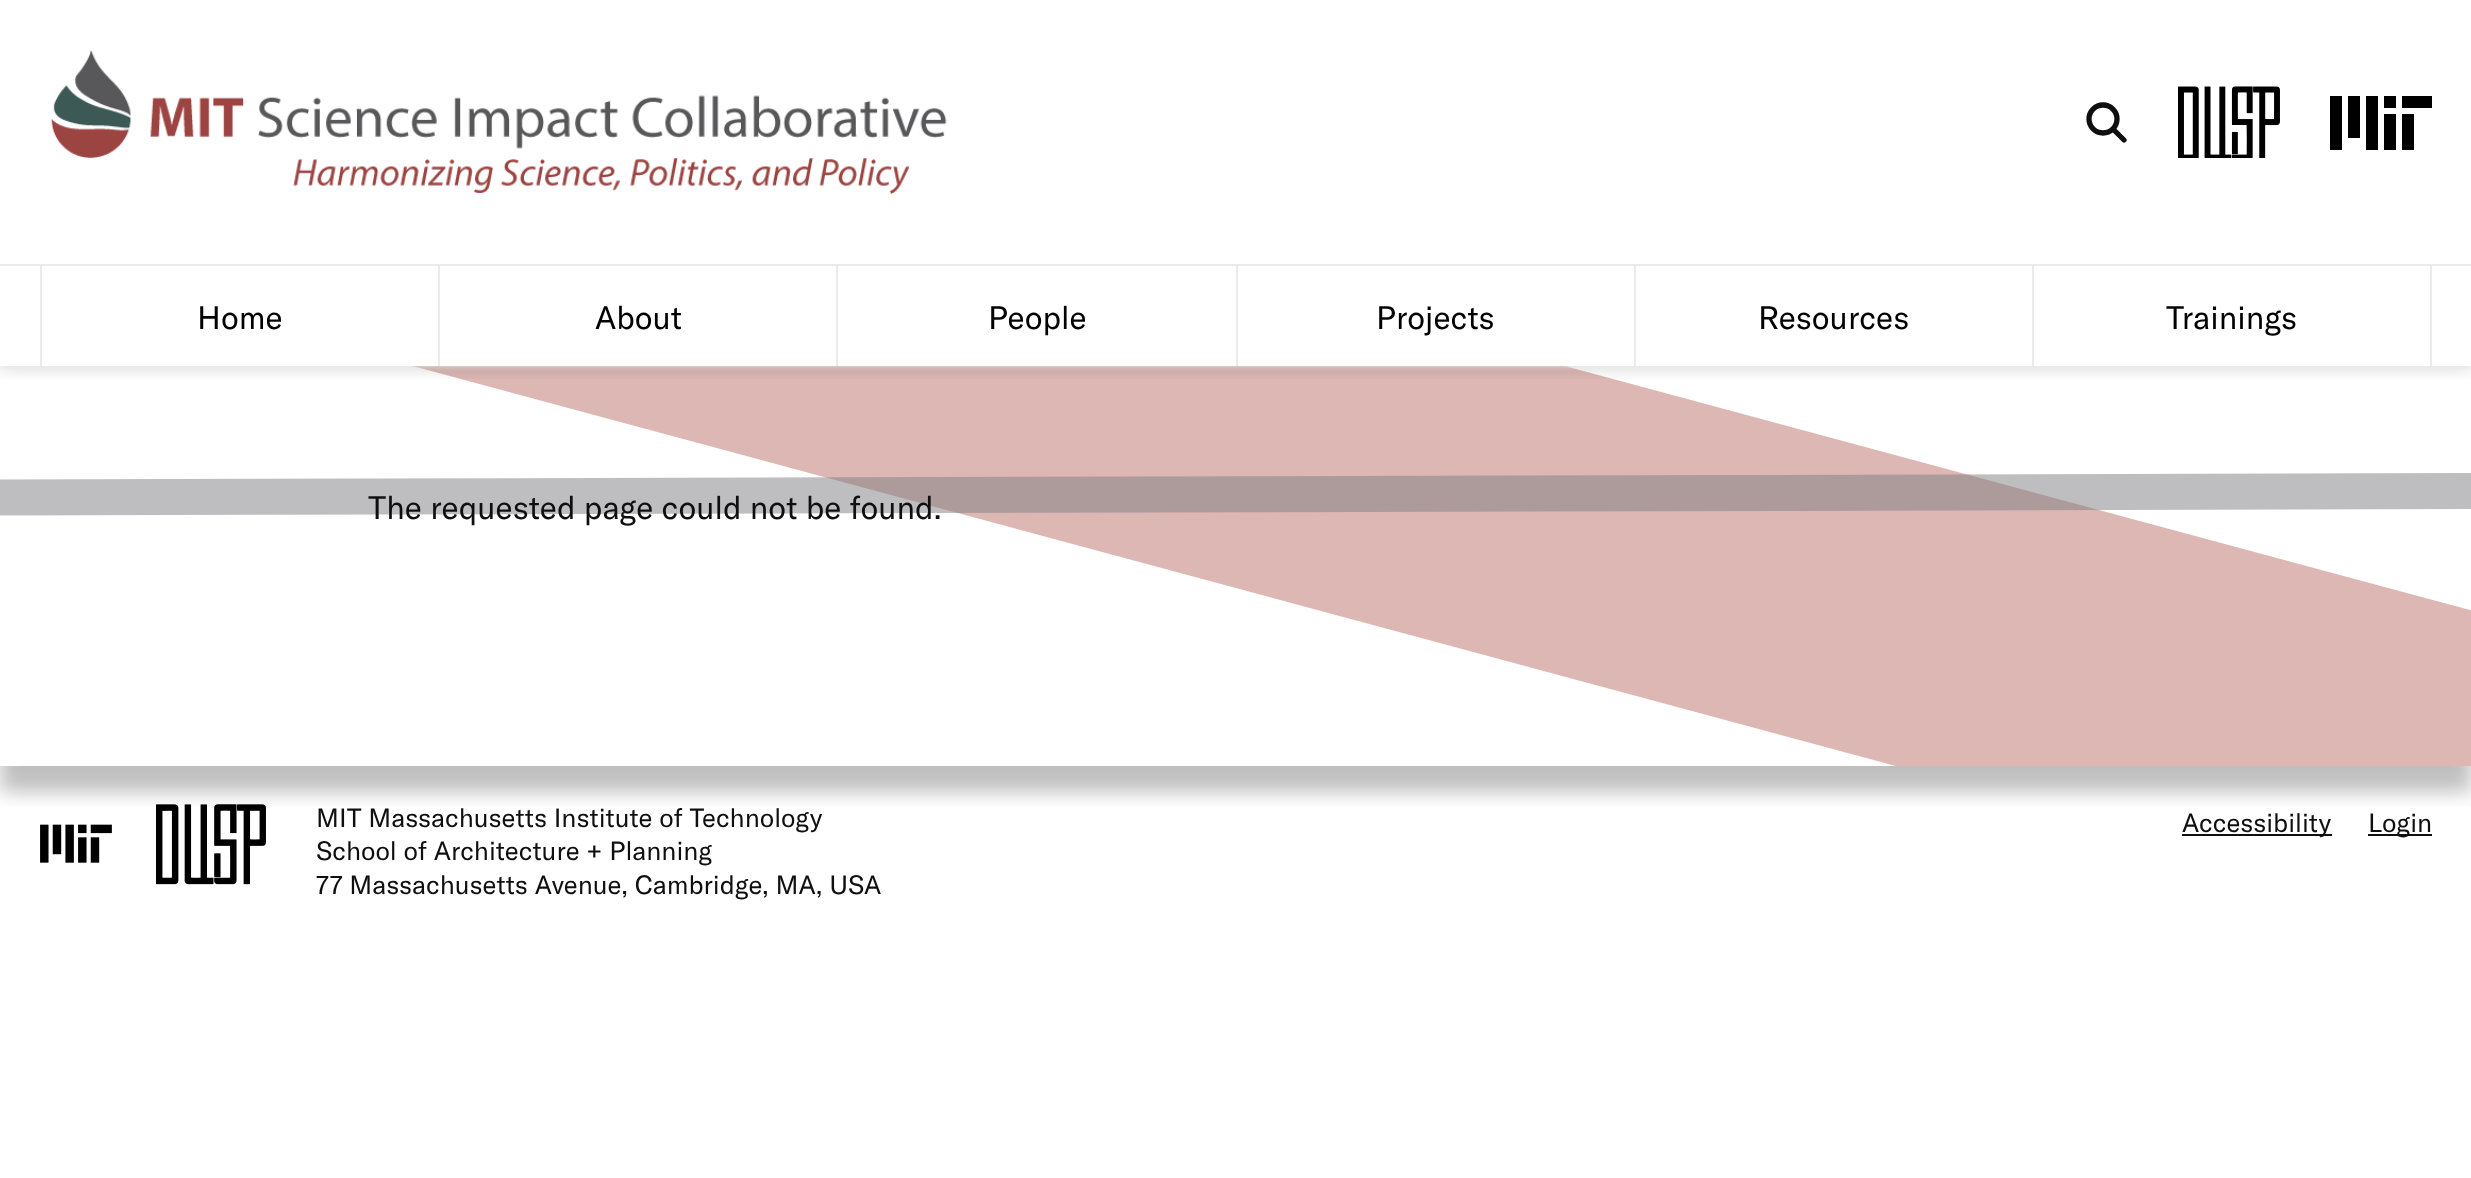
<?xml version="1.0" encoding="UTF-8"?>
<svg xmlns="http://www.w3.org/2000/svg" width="2471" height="1178">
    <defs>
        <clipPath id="clip1"><rect x="0" y="366" width="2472" height="400"/></clipPath>
        <clipPath id="clip2"><rect x="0" y="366" width="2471" height="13"/></clipPath>
        <filter id="blur1" x="-50%" y="-200%" width="200%" height="500%"><feGaussianBlur stdDeviation="10"/></filter>
        <clipPath id="clip3"><rect x="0" y="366" width="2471" height="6"/></clipPath>
        <filter id="blur2" x="-50%" y="-200%" width="200%" height="500%"><feGaussianBlur stdDeviation="3"/></filter>
        <clipPath id="clip4"><rect x="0" y="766" width="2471" height="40"/></clipPath>
    </defs>
    <rect width="100%" height="100%" fill="#FFFFFF"/>
    <g clip-path="url(#clip1)">
        <path d="M 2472 766 L 247 166" fill="none" stroke="#DCB7B4" stroke-width="300"/>
    </g>
    <g clip-path="url(#clip2)">
        <rect x="0" y="0" width="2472" height="366" fill="#000000" fill-opacity="0.2" filter="url(#blur1)"/>
    </g>
    <g clip-path="url(#clip3)">
        <rect x="0" y="0" width="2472" height="366" fill="#EBEBEB" filter="url(#blur2)"/>
    </g>
    <image x="51" y="50" width="896" height="144" href="img_01.png"/>
    <circle cx="2103" cy="119" r="14" fill="none" stroke="#0F0F0F" stroke-width="5.3"/>
    <path d="M 2124 140 L 2113.5 129.5" fill="none" stroke="#0F0F0F" stroke-width="5.3" stroke-linecap="round" stroke-linejoin="round"/>
    <image x="2178" y="86" width="102" height="72" href="img_02.png"/>
    <path d="M 2384 150 H 2396 V 114 H 2384 Z M 2402 108 H 2432 V 96 H 2402 Z M 2384 96 H 2396 V 108 H 2384 Z M 2366 150 H 2378 V 96 H 2366 Z M 2348 138 H 2360 V 96 H 2348 Z M 2330 150 H 2342 V 96 H 2330 Z M 2402 150 H 2414 V 114 H 2402 Z" fill="#000000"/>
    <rect x="0" y="264" width="2471" height="2" fill="#EBEBEB"/>
    <rect x="438" y="266" width="2" height="100" fill="#EBEBEB"/>
    <rect x="40" y="266" width="2" height="100" fill="#EBEBEB"/>
    <text x="197" y="329" font-family="GT America" font-size="32" fill="#000000">Home</text>
    <rect x="836" y="266" width="2" height="100" fill="#EBEBEB"/>
    <text x="595" y="329" font-family="GT America" font-size="32" fill="#000000">About</text>
    <rect x="1236" y="266" width="2" height="100" fill="#EBEBEB"/>
    <text x="988" y="329" font-family="GT America" font-size="32" fill="#000000">People</text>
    <rect x="1634" y="266" width="2" height="100" fill="#EBEBEB"/>
    <text x="1376" y="329" font-family="GT America" font-size="32" fill="#000000">Projects</text>
    <rect x="2032" y="266" width="2" height="100" fill="#EBEBEB"/>
    <text x="1758" y="329" font-family="GT America" font-size="32" fill="#000000">Resources</text>
    <rect x="2430" y="266" width="2" height="100" fill="#EBEBEB"/>
    <text x="2166" y="329" font-family="GT America" font-size="32" fill="#000000">Trainings</text>
    <path d="M -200 498 L 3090 489.5" fill="none" stroke="#7E7E81" stroke-opacity="0.5" stroke-width="36"/>
    <image x="156" y="804" width="110" height="81" href="img_04.png"/>
    <g clip-path="url(#clip4)">
        <rect x="0" y="552" width="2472" height="240" fill="#0F0F0F" fill-opacity="0.25" filter="url(#blur1)"/>
    </g>
    <text x="368" y="519" font-family="GT America" font-size="32" fill="#0F0F0F">The requested page could not be found.</text>
    <image x="40" y="824" width="72" height="39" href="img_03.png"/>
    <text font-family="GT America" font-size="26" fill="#0F0F0F">
        <tspan x="316" y="827">MIT Massachusetts Institute of Technology</tspan>
        <tspan x="316" y="860">School of Architecture + Planning</tspan>
        <tspan x="316" y="894">77 Massachusetts Avenue, Cambridge, MA, USA</tspan>
    </text>
    <rect x="2182" y="834" width="150" height="2" fill="#0F0F0F"/>
    <text x="2182" y="832" font-family="GT America" font-size="26" fill="#0F0F0F">Accessibility</text>
    <rect x="2368" y="834" width="64" height="2" fill="#0F0F0F"/>
    <text x="2368" y="832" font-family="GT America" font-size="26" fill="#0F0F0F">Login</text>
</svg>
